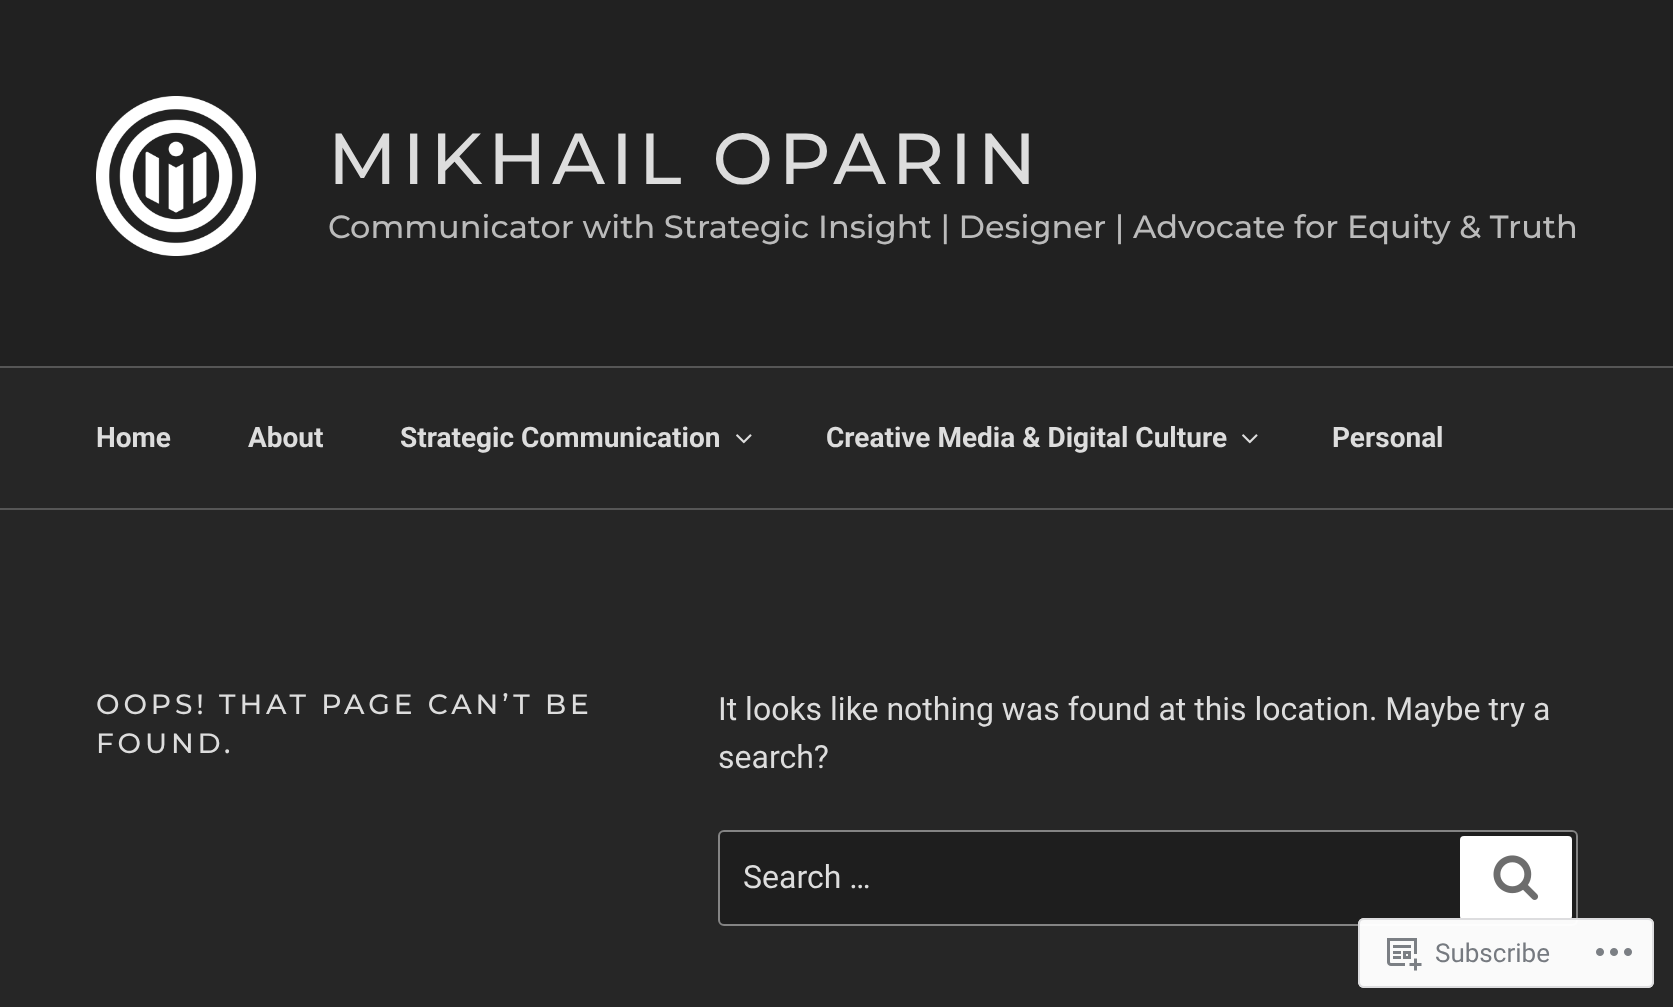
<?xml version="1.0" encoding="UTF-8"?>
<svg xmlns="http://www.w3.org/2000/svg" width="1673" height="1007">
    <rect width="100%" height="100%" fill="#262626"/>
    <rect x="0" y="0" width="1673" height="366" fill="#212121"/>
    <image x="96" y="96" width="160" height="160" href="img_01.png"/>
    <text x="328" y="184" font-family="Montserrat" font-size="72" font-weight="100" letter-spacing="5.75" fill="#DDDDDD">MIKHAIL OPARIN</text>
    <text x="328" y="238" font-family="Montserrat" font-size="32" font-weight="100" fill="#BBBBBB">Communicator with Strategic Insight | Designer | Advocate for Equity &amp; Truth</text>
    <rect x="0" y="366" width="1673" height="2" fill="#565656"/>
    <rect x="0" y="508" width="1673" height="2" fill="#565656"/>
    <text x="96" y="447" font-family="Roboto" font-size="28" font-weight="700" fill="#DDDDDD">Home</text>
    <text x="248" y="447" font-family="Roboto" font-size="28" font-weight="700" fill="#DDDDDD">About</text>
    <text x="400" y="447" font-family="Roboto" font-size="28" font-weight="700" fill="#DDDDDD">Strategic Communication</text>
    <image x="736" y="434" width="16" height="10" href="img_02.png"/>
    <text x="826" y="447" font-family="Roboto" font-size="28" font-weight="700" fill="#DDDDDD">Creative Media &amp; Digital Culture</text>
    <image x="1242" y="434" width="16" height="10" href="img_02.png"/>
    <text x="1332" y="447" font-family="Roboto" font-size="28" font-weight="700" fill="#DDDDDD">Personal</text>
    <text font-family="Montserrat" font-size="28" font-weight="100" letter-spacing="3.9" fill="#DDDDDD">
        <tspan x="96" y="714">OOPS! THAT PAGE CAN’T BE</tspan>
        <tspan x="96" y="753">FOUND.</tspan>
    </text>
    <text font-family="Roboto" font-size="32" fill="#DDDDDD">
        <tspan x="718" y="720">It looks like nothing was found at this location. Maybe try a</tspan>
        <tspan x="718" y="768">search?</tspan>
    </text>
    <rect x="719" y="831" width="858" height="94" rx="5" fill="#1E1E1E" stroke="#848484" stroke-width="2"/>
    <text x="743" y="888" font-family="Roboto" font-size="32" fill="#DDDDDD">Search …</text>
    <rect x="1460" y="836" width="112" height="84" rx="4" fill="#FFFFFF"/>
    <image x="1493" y="855" width="46" height="45" href="img_03.png"/>
    <rect x="1358" y="918" width="296" height="70" rx="6" fill="#FFFFFF" fill-opacity="0.98"/>
    <rect x="1359" y="919" width="294" height="68" rx="5" fill="none" stroke="#DCDCDE" stroke-opacity="0.98" stroke-width="2"/>
    <image x="1387" y="938" width="35" height="33" href="img_04.png"/>
    <text x="1435" y="962" font-family="Roboto" font-size="26" fill="#767A80">Subscribe</text>
    <image x="1596" y="948" width="36" height="8" href="img_05.png"/>
</svg>
